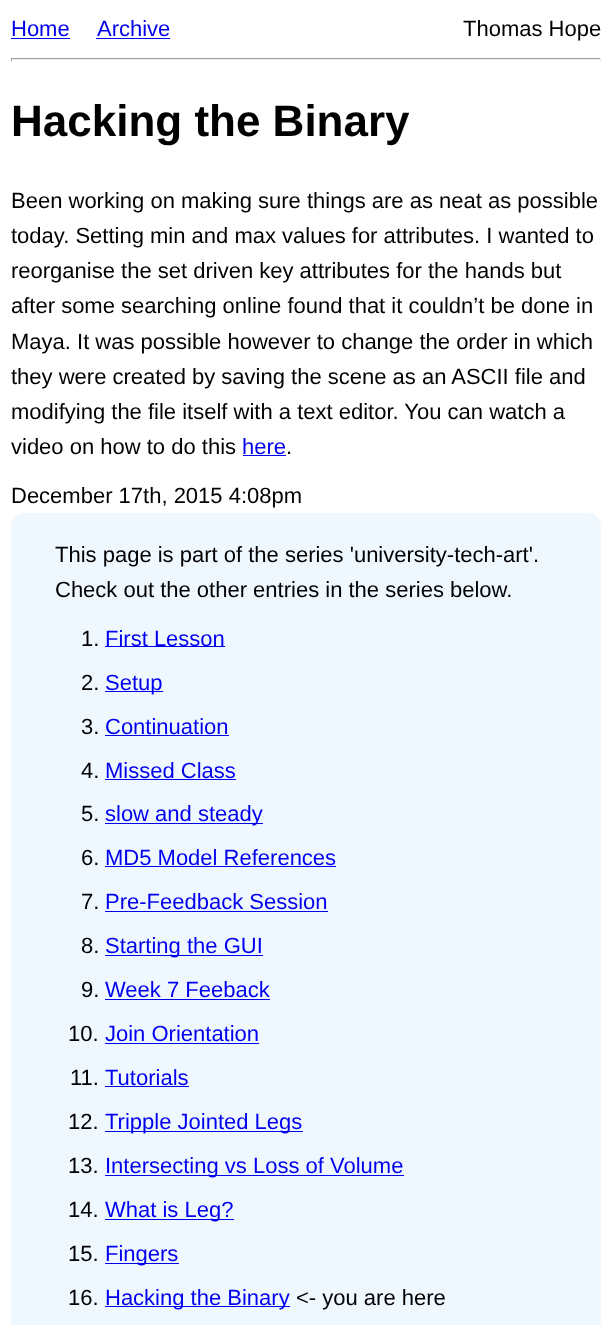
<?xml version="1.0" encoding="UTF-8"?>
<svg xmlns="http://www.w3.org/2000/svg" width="612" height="1325">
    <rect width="100%" height="100%" fill="#FFFFFF"/>
    <text x="11" y="36" font-family="Liberation Sans" font-size="22" fill="#0000EE">Home</text>
    <rect x="11" y="38" width="59" height="1" fill="#0000EE"/>
    <text x="97" y="36" font-family="Liberation Sans" font-size="22" fill="#0000EE">Archive</text>
    <rect x="96" y="38" width="74" height="1" fill="#0000EE"/>
    <text x="463" y="36" font-family="Liberation Sans" font-size="22" fill="#000000">Thomas Hope</text>
    <rect x="11" y="58" width="590" height="1" fill="#9F9F9F"/>
    <rect x="600" y="58" width="1" height="3" fill="#EEEEEE"/>
    <rect x="11" y="59" width="590" height="1" fill="#EEEEEE"/>
    <rect x="11" y="58" width="1" height="3" fill="#9F9F9F"/>
    <text x="11" y="136" font-family="Liberation Sans" font-size="44" font-weight="700" fill="#000000">Hacking the Binary</text>
    <text font-family="Liberation Sans" font-size="22" fill="#000000">
        <tspan x="11" y="208">Been working on making sure things are as neat as possible</tspan>
        <tspan x="11" y="243">today. Setting min and max values for attributes. I wanted to</tspan>
        <tspan x="11" y="278">reorganise the set driven key attributes for the hands but</tspan>
        <tspan x="11" y="313">after some searching online found that it couldn’t be done in</tspan>
        <tspan x="11" y="349">Maya. It was possible however to change the order in which</tspan>
        <tspan x="11" y="384">they were created by saving the scene as an ASCII file and</tspan>
        <tspan x="11" y="419">modifying the file itself with a text editor. You can watch a</tspan>
        <tspan x="11" y="454">video on how to do this</tspan>
    </text>
    <text x="242" y="454" font-family="Liberation Sans" font-size="22" fill="#0000EE">here</text>
    <rect x="243" y="455" width="43" height="1" fill="#0000EE"/>
    <text x="286" y="454" font-family="Liberation Sans" font-size="22" fill="#000000">.</text>
    <text x="11" y="503" font-family="Liberation Sans" font-size="22" fill="#000000">December 17th, 2015 4:08pm</text>
    <rect x="11" y="513" width="590" height="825" rx="13" fill="#F0F8FF"/>
    <text font-family="Liberation Sans" font-size="22" fill="#000000">
        <tspan x="55" y="562">This page is part of the series 'university-tech-art'.</tspan>
        <tspan x="55" y="597">Check out the other entries in the series below.</tspan>
    </text>
    <text x="81" y="646" font-family="Liberation Sans" font-size="22" fill="#000000">1.</text>
    <rect x="105" y="646" width="120" height="1" fill="#0000EE"/>
    <text x="105" y="646" font-family="Liberation Sans" font-size="22" fill="#0000EE">First Lesson</text>
    <text x="81" y="690" font-family="Liberation Sans" font-size="22" fill="#000000">2.</text>
    <rect x="105" y="691" width="58" height="1" fill="#0000EE"/>
    <text x="105" y="690" font-family="Liberation Sans" font-size="22" fill="#0000EE">Setup</text>
    <text x="81" y="734" font-family="Liberation Sans" font-size="22" fill="#000000">3.</text>
    <text x="105" y="734" font-family="Liberation Sans" font-size="22" fill="#0000EE">Continuation</text>
    <rect x="105" y="735" width="124" height="1" fill="#0000EE"/>
    <text x="81" y="778" font-family="Liberation Sans" font-size="22" fill="#000000">4.</text>
    <text x="105" y="778" font-family="Liberation Sans" font-size="22" fill="#0000EE">Missed Class</text>
    <rect x="105" y="779" width="131" height="1" fill="#0000EE"/>
    <text x="81" y="821" font-family="Liberation Sans" font-size="22" fill="#000000">5.</text>
    <rect x="105" y="823" width="158" height="1" fill="#0000EE"/>
    <text x="105" y="821" font-family="Liberation Sans" font-size="22" fill="#0000EE">slow and steady</text>
    <text x="81" y="865" font-family="Liberation Sans" font-size="22" fill="#000000">6.</text>
    <text x="105" y="865" font-family="Liberation Sans" font-size="22" fill="#0000EE">MD5 Model References</text>
    <rect x="105" y="866" width="231" height="1" fill="#0000EE"/>
    <text x="81" y="909" font-family="Liberation Sans" font-size="22" fill="#000000">7.</text>
    <text x="105" y="909" font-family="Liberation Sans" font-size="22" fill="#0000EE">Pre-Feedback Session</text>
    <rect x="105" y="911" width="223" height="1" fill="#0000EE"/>
    <text x="81" y="953" font-family="Liberation Sans" font-size="22" fill="#000000">8.</text>
    <rect x="105" y="955" width="158" height="1" fill="#0000EE"/>
    <text x="105" y="953" font-family="Liberation Sans" font-size="22" fill="#0000EE">Starting the GUI</text>
    <text x="81" y="997" font-family="Liberation Sans" font-size="22" fill="#000000">9.</text>
    <text x="105" y="997" font-family="Liberation Sans" font-size="22" fill="#0000EE">Week 7 Feeback</text>
    <rect x="105" y="999" width="165" height="1" fill="#0000EE"/>
    <text x="68" y="1041" font-family="Liberation Sans" font-size="22" fill="#000000">10.</text>
    <text x="105" y="1041" font-family="Liberation Sans" font-size="22" fill="#0000EE">Join Orientation</text>
    <rect x="105" y="1043" width="154" height="1" fill="#0000EE"/>
    <text x="70" y="1085" font-family="Liberation Sans" font-size="22" fill="#000000">11.</text>
    <text x="105" y="1085" font-family="Liberation Sans" font-size="22" fill="#0000EE">Tutorials</text>
    <rect x="105" y="1086" width="84" height="1" fill="#0000EE"/>
    <text x="68" y="1129" font-family="Liberation Sans" font-size="22" fill="#000000">12.</text>
    <rect x="105" y="1131" width="198" height="1" fill="#0000EE"/>
    <text x="105" y="1129" font-family="Liberation Sans" font-size="22" fill="#0000EE">Tripple Jointed Legs</text>
    <text x="68" y="1173" font-family="Liberation Sans" font-size="22" fill="#000000">13.</text>
    <rect x="105" y="1175" width="299" height="1" fill="#0000EE"/>
    <text x="105" y="1173" font-family="Liberation Sans" font-size="22" fill="#0000EE">Intersecting vs Loss of Volume</text>
    <text x="68" y="1217" font-family="Liberation Sans" font-size="22" fill="#000000">14.</text>
    <rect x="105" y="1219" width="129" height="1" fill="#0000EE"/>
    <text x="105" y="1217" font-family="Liberation Sans" font-size="22" fill="#0000EE">What is Leg?</text>
    <text x="68" y="1261" font-family="Liberation Sans" font-size="22" fill="#000000">15.</text>
    <rect x="105" y="1263" width="74" height="1" fill="#0000EE"/>
    <text x="105" y="1261" font-family="Liberation Sans" font-size="22" fill="#0000EE">Fingers</text>
    <text x="68" y="1305" font-family="Liberation Sans" font-size="22" fill="#000000">16.</text>
    <rect x="105" y="1306" width="185" height="1" fill="#0000EE"/>
    <text x="105" y="1305" font-family="Liberation Sans" font-size="22" fill="#0000EE">Hacking the Binary</text>
    <text x="296" y="1305" font-family="Liberation Sans" font-size="22" fill="#000000">&lt;- you are here</text>
</svg>
